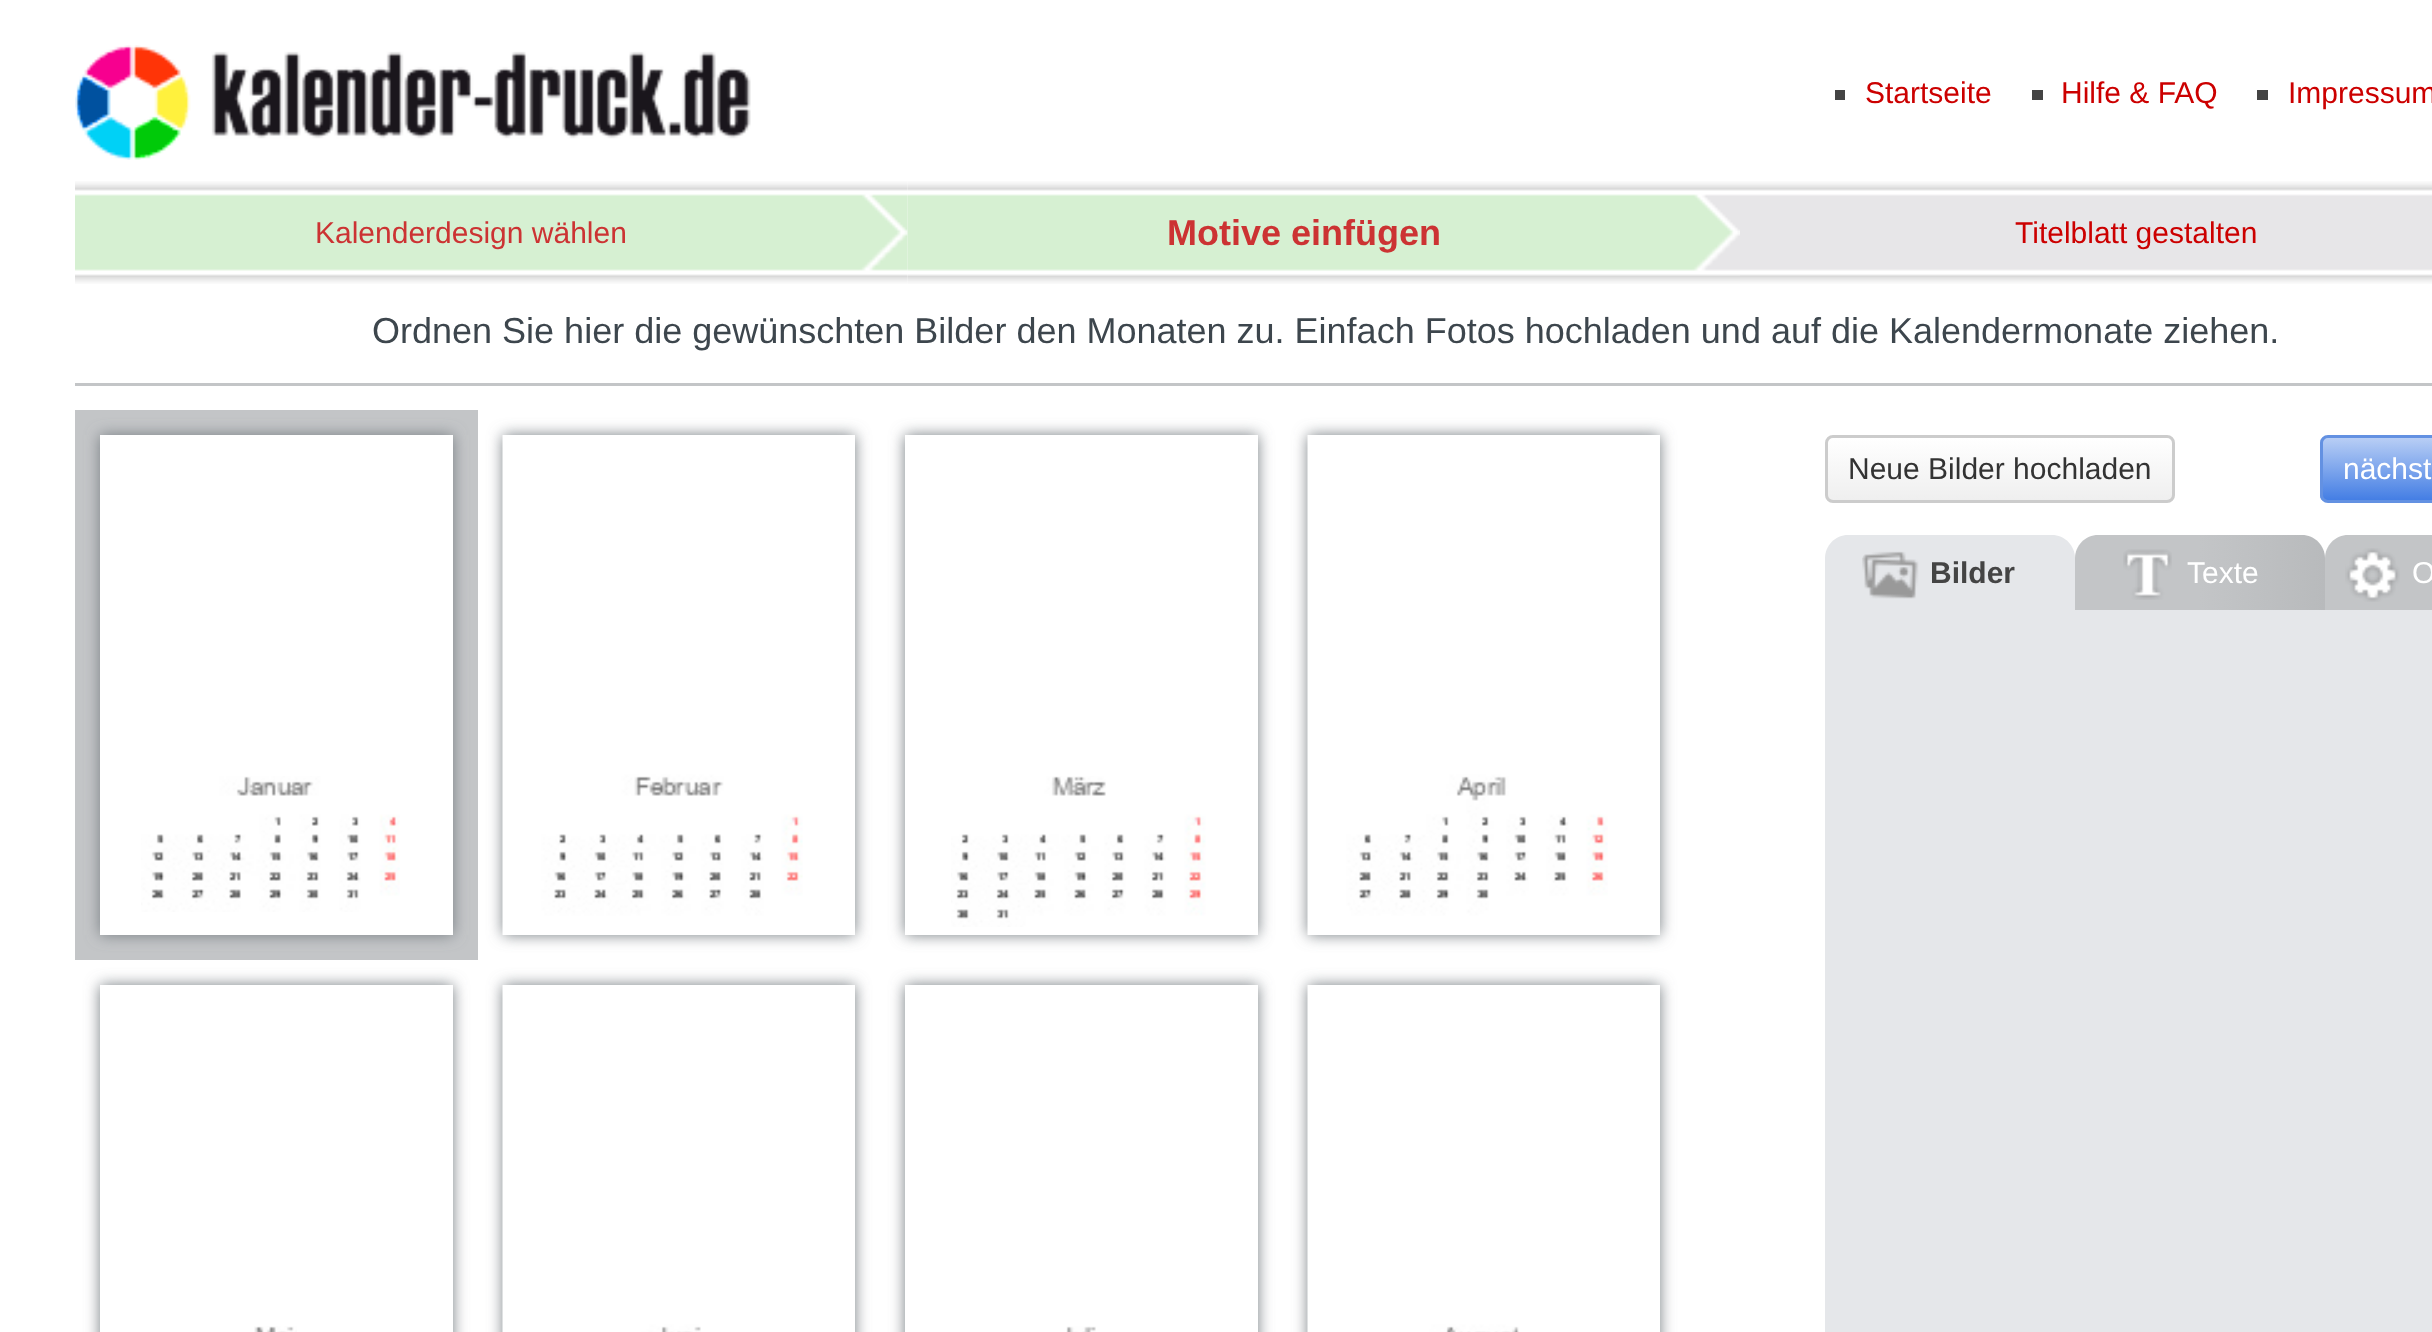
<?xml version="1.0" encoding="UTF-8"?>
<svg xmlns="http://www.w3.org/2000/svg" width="2432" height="1332">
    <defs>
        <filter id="blur1" x="-50%" y="-200%" width="200%" height="500%"><feGaussianBlur stdDeviation="7.5"/></filter>
        <clipPath id="clip1"><path d="M 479 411 H 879 V 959 H 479 Z M 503 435 H 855 V 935 H 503 Z" clip-rule="evenodd"/></clipPath>
        <clipPath id="clip2"><path d="M 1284 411 H 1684 V 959 H 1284 Z M 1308 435 H 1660 V 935 H 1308 Z" clip-rule="evenodd"/></clipPath>
        <clipPath id="clip3"><path d="M 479 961 H 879 V 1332 H 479 Z M 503 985 H 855 V 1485 H 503 Z" clip-rule="evenodd"/></clipPath>
        <clipPath id="clip4"><path d="M 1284 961 H 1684 V 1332 H 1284 Z M 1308 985 H 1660 V 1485 H 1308 Z" clip-rule="evenodd"/></clipPath>
        <clipPath id="clip5"><rect x="1825" y="435" width="350" height="68" rx="8"/></clipPath>
        <linearGradient id="g1" gradientUnits="userSpaceOnUse" x1="1828" y1="438" x2="1828" y2="500"><stop offset="0" stop-color="#FFFFFF"/><stop offset="1" stop-color="#EFEFEF"/></linearGradient>
        <clipPath id="clip6"><rect x="2320" y="435" width="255" height="68" rx="8"/></clipPath>
        <linearGradient id="g2" gradientUnits="userSpaceOnUse" x1="2323" y1="438" x2="2323" y2="500"><stop offset="0" stop-color="#B8CEF5"/><stop offset="1" stop-color="#447EE4"/></linearGradient>
        <linearGradient id="g3" gradientUnits="userSpaceOnUse" x1="2075" y1="573" x2="2325" y2="573"><stop offset="0" stop-color="#C3C5C7"/><stop offset="0.5" stop-color="#C3C5C7"/><stop offset="1" stop-color="#B8BABC"/></linearGradient>
        <linearGradient id="g4" gradientUnits="userSpaceOnUse" x1="2325" y1="573" x2="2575" y2="573"><stop offset="0" stop-color="#C3C5C7"/><stop offset="0.5" stop-color="#C3C5C7"/><stop offset="1" stop-color="#B8BABC"/></linearGradient>
    </defs>
    <rect width="100%" height="100%" fill="#FFFFFF"/>
    <rect x="75" y="383" width="2357" height="3" fill="#C3C5C7"/>
    <image x="75" y="45" width="676" height="115" href="img_01.png"/>
    <rect x="1835" y="90" width="10" height="10" fill="#444444"/>
    <text x="1865" y="103" font-family="Liberation Sans" font-size="30" fill="#CC0000">Startseite</text>
    <rect x="2032" y="90" width="11" height="10" fill="#444444"/>
    <text x="2061" y="103" font-family="Liberation Sans" font-size="30" fill="#CC0000">Hilfe &amp; FAQ</text>
    <rect x="2257" y="90" width="11" height="10" fill="#444444"/>
    <text x="2288" y="103" font-family="Liberation Sans" font-size="30" fill="#CC0000">Impressum</text>
    <image x="75" y="181" width="833" height="103" href="img_02.png"/>
    <text x="315" y="243" font-family="Liberation Sans" font-size="30" fill="#CC3333">Kalenderdesign wählen</text>
    <image x="907" y="181" width="833" height="103" href="img_03.png"/>
    <text x="1167" y="245" font-family="Liberation Sans" font-size="36" font-weight="700" fill="#CC3333">Motive einfügen</text>
    <image x="1740" y="181" width="692" height="103" href="img_04.png"/>
    <text x="2015" y="243" font-family="Liberation Sans" font-size="30" fill="#CC0000">Titelblatt gestalten</text>
    <text x="372" y="343" font-family="Liberation Sans" font-size="36" fill="#3D464D">Ordnen Sie hier die gewünschten Bilder den Monaten zu. Einfach Fotos hochladen und auf die Kalendermonate ziehen.</text>
    <rect x="75" y="410" width="403" height="550" fill="#C3C5C7"/>
    <rect x="100" y="435" width="353" height="500" fill="#777D82" filter="url(#blur1)"/>
    <rect x="100" y="435" width="353" height="500" fill="#FFFFFF"/>
    <image x="141" y="776" width="259" height="136" href="img_05.png"/>
    <g clip-path="url(#clip1)">
        <rect x="503" y="435" width="352" height="500" fill="#777D82" filter="url(#blur1)"/>
    </g>
    <image x="502" y="435" width="301" height="500" href="img_06.png"/>
    <rect x="905" y="435" width="353" height="500" fill="#777D82" filter="url(#blur1)"/>
    <rect x="905" y="435" width="353" height="500" fill="#FFFFFF"/>
    <image x="951" y="776" width="255" height="151" href="img_07.png"/>
    <g clip-path="url(#clip2)">
        <rect x="1308" y="435" width="352" height="500" fill="#777D82" filter="url(#blur1)"/>
    </g>
    <image x="1307" y="435" width="301" height="500" href="img_08.png"/>
    <rect x="100" y="985" width="353" height="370" fill="#777D82" filter="url(#blur1)"/>
    <rect x="100" y="985" width="353" height="347" fill="#FFFFFF"/>
    <image x="254" y="1326" width="43" height="6" href="img_09.png"/>
    <g clip-path="url(#clip3)">
        <rect x="503" y="985" width="352" height="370" fill="#777D82" filter="url(#blur1)"/>
    </g>
    <image x="502" y="985" width="199" height="347" href="img_10.png"/>
    <rect x="905" y="985" width="353" height="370" fill="#777D82" filter="url(#blur1)"/>
    <rect x="905" y="985" width="353" height="347" fill="#FFFFFF"/>
    <image x="1066" y="1326" width="30" height="6" href="img_11.png"/>
    <g clip-path="url(#clip4)">
        <rect x="1308" y="985" width="352" height="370" fill="#777D82" filter="url(#blur1)"/>
    </g>
    <image x="1307" y="985" width="212" height="347" href="img_12.png"/>
    <g clip-path="url(#clip5)">
        <rect x="1825" y="438" width="350" height="62" fill="url(#g1)"/>
    </g>
    <rect x="1826.5" y="436.5" width="347" height="65" rx="6.5" fill="none" stroke="#CCCCCC" stroke-width="3"/>
    <text x="1848" y="479" font-family="Liberation Sans" font-size="30" fill="#333333">Neue Bilder hochladen</text>
    <g clip-path="url(#clip6)">
        <rect x="2320" y="438" width="112" height="62" fill="url(#g2)"/>
    </g>
    <rect x="2321.5" y="436.5" width="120" height="65" rx="6.5" fill="none" stroke="#6391E2" stroke-width="3"/>
    <text x="2343" y="479" font-family="Liberation Sans" font-size="30" fill="#FFFFFF">nächst</text>
    <rect x="1825" y="610" width="607" height="722" fill="#E5E7EA"/>
    <path d="M 1848 535 H 2052 C 2064.5 535 2075 545.5 2075 558 V 610 H 1825 V 558 C 1825 545.5 1835.5 535 1848 535 Z" fill="#E5E7EA"/>
    <image x="1862" y="551" width="57" height="48" href="img_13.png"/>
    <text x="1930" y="583" font-family="Liberation Sans" font-size="30" font-weight="700" fill="#444444">Bilder</text>
    <path d="M 2098 535 H 2302 C 2314.5 535 2325 545.5 2325 558 V 610 H 2075 V 558 C 2075 545.5 2085.5 535 2098 535 Z" fill="url(#g3)"/>
    <image x="2123" y="549" width="49" height="51" href="img_14.png"/>
    <text x="2187" y="583" font-family="Liberation Sans" font-size="30" fill="#FFFFFF">Texte</text>
    <path d="M 2348 535 H 2432 C 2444.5 535 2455 545.5 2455 558 V 610 H 2325 V 558 C 2325 545.5 2335.5 535 2348 535 Z" fill="url(#g4)"/>
    <image x="2345" y="548" width="55" height="54" href="img_15.png"/>
    <text x="2412" y="583" font-family="Liberation Sans" font-size="30" fill="#FFFFFF">O</text>
</svg>
